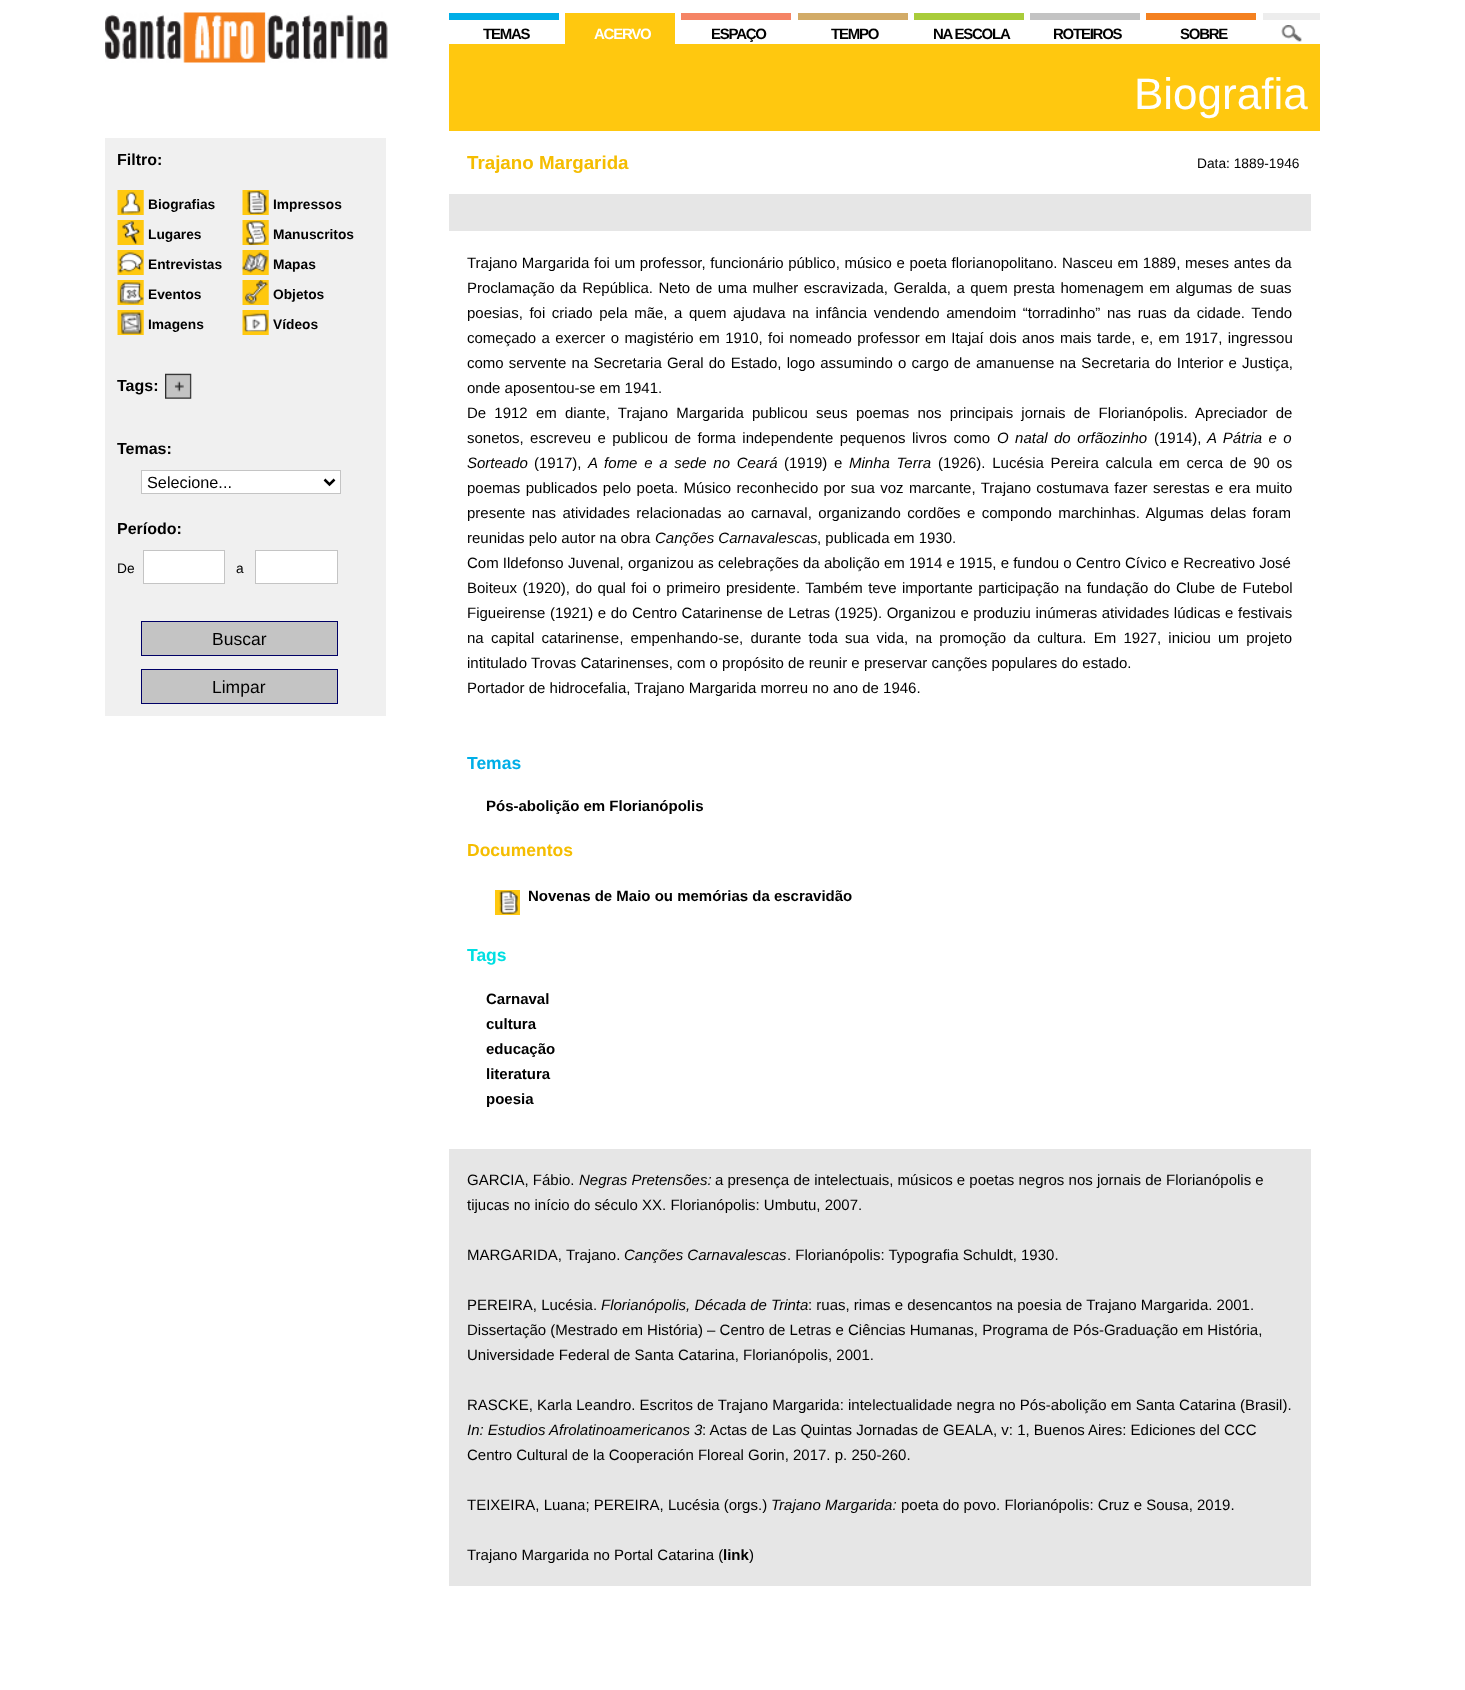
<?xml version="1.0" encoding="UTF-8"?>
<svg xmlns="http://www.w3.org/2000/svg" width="1465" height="1690">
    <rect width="100%" height="100%" fill="#FFFFFF"/>
    <image x="105" y="12" width="283" height="51" href="img_01.png"/>
    <rect x="105" y="138" width="281" height="578" fill="#F0F0F0"/>
    <text x="117" y="165" font-family="Liberation Sans" font-size="16" font-weight="700" fill="#000000">Filtro:</text>
    <image x="117" y="190" width="27" height="25" href="img_02.png"/>
    <text x="148" y="209" font-family="Liberation Sans" font-size="13.75" font-weight="700" fill="#000000">Biografias</text>
    <image x="117" y="220" width="27" height="25" href="img_03.png"/>
    <text x="148" y="239" font-family="Liberation Sans" font-size="13.75" font-weight="700" fill="#000000">Lugares</text>
    <image x="117" y="250" width="27" height="25" href="img_04.png"/>
    <text x="148" y="269" font-family="Liberation Sans" font-size="13.75" font-weight="700" fill="#000000">Entrevistas</text>
    <image x="117" y="280" width="27" height="25" href="img_05.png"/>
    <text x="148" y="299" font-family="Liberation Sans" font-size="13.75" font-weight="700" fill="#000000">Eventos</text>
    <image x="117" y="310" width="27" height="25" href="img_06.png"/>
    <text x="148" y="329" font-family="Liberation Sans" font-size="13.75" font-weight="700" fill="#000000">Imagens</text>
    <image x="242" y="190" width="27" height="25" href="img_07.png"/>
    <text x="273" y="209" font-family="Liberation Sans" font-size="13.75" font-weight="700" fill="#000000">Impressos</text>
    <image x="242" y="220" width="27" height="25" href="img_08.png"/>
    <text x="273" y="239" font-family="Liberation Sans" font-size="13.75" font-weight="700" fill="#000000">Manuscritos</text>
    <image x="242" y="250" width="27" height="25" href="img_09.png"/>
    <text x="273" y="269" font-family="Liberation Sans" font-size="13.75" font-weight="700" fill="#000000">Mapas</text>
    <image x="242" y="280" width="27" height="25" href="img_10.png"/>
    <text x="273" y="299" font-family="Liberation Sans" font-size="13.75" font-weight="700" fill="#000000">Objetos</text>
    <image x="242" y="310" width="27" height="25" href="img_11.png"/>
    <text x="273" y="329" font-family="Liberation Sans" font-size="13.75" font-weight="700" fill="#000000">Vídeos</text>
    <text x="117" y="391" font-family="Liberation Sans" font-size="16" font-weight="700" fill="#000000">Tags:</text>
    <image x="165" y="373" width="27" height="26" href="img_12.png"/>
    <text x="117" y="454" font-family="Liberation Sans" font-size="16" font-weight="700" fill="#000000">Temas:</text>
    <rect x="141.5" y="470.5" width="199" height="23" fill="#FFFFFF" stroke="#C4C4C4"/>
    <path d="M 324.5 479.5 L 329.5 484.5 L 334.5 479.5" fill="none" stroke="#000000" stroke-width="2.5"/>
    <text x="147" y="488" font-family="Liberation Sans" font-size="16.25" fill="#000000">Selecione...</text>
    <text x="117" y="534" font-family="Liberation Sans" font-size="16" font-weight="700" fill="#000000">Período:</text>
    <text x="117" y="573" font-family="Liberation Sans" font-size="13.75" fill="#000000">De</text>
    <rect x="143.5" y="550.5" width="81" height="33" fill="#FFFFFF" stroke="#C4C4C4"/>
    <text x="236" y="573" font-family="Liberation Sans" font-size="13.75" fill="#000000">a</text>
    <rect x="255.5" y="550.5" width="82" height="33" fill="#FFFFFF" stroke="#C4C4C4"/>
    <rect x="141.5" y="621.5" width="196" height="34" fill="#C4C4C4" stroke="#000066"/>
    <text x="212" y="645" font-family="Liberation Sans" font-size="17.5" fill="#000000">Buscar</text>
    <rect x="141.5" y="669.5" width="196" height="34" fill="#C4C4C4" stroke="#000066"/>
    <text x="212" y="693" font-family="Liberation Sans" font-size="17.5" fill="#000000">Limpar</text>
    <rect x="449" y="13" width="110" height="7" fill="#00AEE7"/>
    <text x="483" y="39" font-family="Liberation Sans" font-size="15" font-weight="700" letter-spacing="-1.25" fill="#000000">TEMAS</text>
    <rect x="565" y="13" width="110" height="31" fill="#FFC80F"/>
    <text x="594" y="39" font-family="Liberation Sans" font-size="15" font-weight="700" letter-spacing="-1.25" fill="#FFFFFF">ACERVO</text>
    <rect x="681" y="13" width="110" height="7" fill="#F58465"/>
    <text x="711" y="39" font-family="Liberation Sans" font-size="15" font-weight="700" letter-spacing="-1.25" fill="#000000">ESPAÇO</text>
    <rect x="798" y="13" width="110" height="7" fill="#D2AB67"/>
    <text x="831" y="39" font-family="Liberation Sans" font-size="15" font-weight="700" letter-spacing="-1.25" fill="#000000">TEMPO</text>
    <rect x="914" y="13" width="110" height="7" fill="#A9CC3A"/>
    <text x="933" y="39" font-family="Liberation Sans" font-size="15" font-weight="700" letter-spacing="-1.25" fill="#000000">NA ESCOLA</text>
    <rect x="1030" y="13" width="110" height="7" fill="#C3C3C3"/>
    <text x="1053" y="39" font-family="Liberation Sans" font-size="15" font-weight="700" letter-spacing="-1.25" fill="#000000">ROTEIROS</text>
    <rect x="1146" y="13" width="110" height="7" fill="#F48120"/>
    <text x="1180" y="39" font-family="Liberation Sans" font-size="15" font-weight="700" letter-spacing="-1.25" fill="#000000">SOBRE</text>
    <rect x="1263" y="13" width="57" height="7" fill="#EDEDED"/>
    <image x="1281" y="25" width="21" height="17" href="img_13.png"/>
    <rect x="449" y="44" width="871" height="87" fill="#FFC80F"/>
    <text x="1134" y="109" font-family="Liberation Sans" font-size="44" fill="#FFFFFF">Biografia</text>
    <text x="467" y="169" font-family="Liberation Sans" font-size="18.75" font-weight="700" fill="#F5BD00">Trajano Margarida</text>
    <text x="1197" y="168" font-family="Liberation Sans" font-size="13.75" fill="#000000">Data: 1889-1946</text>
    <rect x="449" y="194" width="862" height="37" fill="#E6E6E6"/>
    <text font-family="Liberation Sans" font-size="15" fill="#000000">
        <tspan x="467" y="268" word-spacing="0.4">Trajano Margarida foi um professor, funcionário público, músico e poeta florianopolitano. Nasceu em 1889, meses antes da</tspan>
        <tspan x="467" y="293" word-spacing="1.3">Proclamação da República. Neto de uma mulher escravizada, Geralda, a quem presta homenagem em algumas de suas</tspan>
        <tspan x="467" y="318" word-spacing="2.4">poesias, foi criado pela mãe, a quem ajudava na infância vendendo amendoim “torradinho” nas ruas da cidade. Tendo</tspan>
        <tspan x="467" y="343" word-spacing="1.2">começado a exercer o magistério em 1910, foi nomeado professor em Itajaí dois anos mais tarde, e, em 1917, ingressou</tspan>
        <tspan x="467" y="368" word-spacing="1">como servente na Secretaria Geral do Estado, logo assumindo o cargo de amanuense na Secretaria do Interior e Justiça,</tspan>
        <tspan x="467" y="393">onde aposentou-se em 1941.</tspan>
        <tspan x="467" y="418" word-spacing="4">De 1912 em diante, Trajano Margarida publicou seus poemas nos principais jornais de Florianópolis. Apreciador de</tspan>
        <tspan x="467" y="443" word-spacing="2.25">sonetos, escreveu e publicou de forma independente pequenos livros como</tspan>
    </text>
    <text x="997" y="443" word-spacing="2.25" font-family="Liberation Sans" font-size="15" font-style="italic" fill="#000000">O natal do orfãozinho</text>
    <text x="1154" y="443" font-family="Liberation Sans" font-size="15" fill="#000000">(1914),</text>
    <text x="1207" y="443" word-spacing="2.25" font-family="Liberation Sans" font-size="15" font-style="italic" fill="#000000">A Pátria e o</text>
    <text x="467" y="468" font-family="Liberation Sans" font-size="15" font-style="italic" fill="#000000">Sorteado</text>
    <text x="534" y="468" font-family="Liberation Sans" font-size="15" fill="#000000">(1917),</text>
    <text x="588" y="468" word-spacing="2.5" font-family="Liberation Sans" font-size="15" font-style="italic" fill="#000000">A fome e a sede no Ceará</text>
    <text x="784" y="468" word-spacing="2.5" font-family="Liberation Sans" font-size="15" fill="#000000">(1919) e</text>
    <text x="849" y="468" word-spacing="2.5" font-family="Liberation Sans" font-size="15" font-style="italic" fill="#000000">Minha Terra</text>
    <text x="938" y="468" word-spacing="2.5" font-family="Liberation Sans" font-size="15" fill="#000000">(1926). Lucésia Pereira calcula em cerca de 90 os</text>
    <text font-family="Liberation Sans" font-size="15" fill="#000000">
        <tspan x="467" y="493" word-spacing="1.2">poemas publicados pelo poeta. Músico reconhecido por sua voz marcante, Trajano costumava fazer serestas e era muito</tspan>
        <tspan x="467" y="518" word-spacing="2.25">presente nas atividades relacionadas ao carnaval, organizando cordões e compondo marchinhas. Algumas delas foram</tspan>
        <tspan x="467" y="543">reunidas pelo autor na obra</tspan>
    </text>
    <text x="655" y="543" font-family="Liberation Sans" font-size="15" font-style="italic" fill="#000000">Canções Carnavalescas</text>
    <text x="817" y="543" font-family="Liberation Sans" font-size="15" fill="#000000">, publicada em 1930.</text>
    <text font-family="Liberation Sans" font-size="15" fill="#000000">
        <tspan x="467" y="568">Com Ildefonso Juvenal, organizou as celebrações da abolição em 1914 e 1915, e fundou o Centro Cívico e Recreativo José</tspan>
        <tspan x="467" y="593" word-spacing="1.25">Boiteux (1920), do qual foi o primeiro presidente. Também teve importante participação na fundação do Clube de Futebol</tspan>
        <tspan x="467" y="618" word-spacing="0.4">Figueirense (1921) e do Centro Catarinense de Letras (1925). Organizou e produziu inúmeras atividades lúdicas e festivais</tspan>
        <tspan x="467" y="643" word-spacing="3.1">na capital catarinense, empenhando-se, durante toda sua vida, na promoção da cultura. Em 1927, iniciou um projeto</tspan>
        <tspan x="467" y="668">intitulado Trovas Catarinenses, com o propósito de reunir e preservar canções populares do estado.</tspan>
        <tspan x="467" y="693">Portador de hidrocefalia, Trajano Margarida morreu no ano de 1946.</tspan>
    </text>
    <text x="467" y="769" font-family="Liberation Sans" font-size="17.5" font-weight="700" fill="#00AEE7">Temas</text>
    <text x="486" y="811" font-family="Liberation Sans" font-size="15" font-weight="700" fill="#000000">Pós-abolição em Florianópolis</text>
    <text x="467" y="856" font-family="Liberation Sans" font-size="17.5" font-weight="700" fill="#F5BD00">Documentos</text>
    <image x="495" y="890" width="25" height="25" href="img_14.png"/>
    <text x="528" y="901" font-family="Liberation Sans" font-size="15" font-weight="700" fill="#000000">Novenas de Maio ou memórias da escravidão</text>
    <text x="467" y="961" font-family="Liberation Sans" font-size="17.5" font-weight="700" fill="#00DFE2">Tags</text>
    <text font-family="Liberation Sans" font-size="15" font-weight="700" fill="#000000">
        <tspan x="486" y="1004">Carnaval</tspan>
        <tspan x="486" y="1029">cultura</tspan>
        <tspan x="486" y="1054">educação</tspan>
        <tspan x="486" y="1079">literatura</tspan>
        <tspan x="486" y="1104">poesia</tspan>
    </text>
    <rect x="449" y="1149" width="862" height="437" fill="#E6E6E6"/>
    <text x="467" y="1185" font-family="Liberation Sans" font-size="15" fill="#000000">GARCIA, Fábio.</text>
    <text x="579" y="1185" font-family="Liberation Sans" font-size="15" font-style="italic" fill="#000000">Negras Pretensões:</text>
    <text x="715" y="1185" font-family="Liberation Sans" font-size="15" fill="#000000">a presença de intelectuais, músicos e poetas negros nos jornais de Florianópolis e</text>
    <text x="467" y="1210" font-family="Liberation Sans" font-size="15" fill="#000000">tijucas no início do século XX. Florianópolis: Umbutu, 2007.</text>
    <text x="467" y="1260" font-family="Liberation Sans" font-size="15" fill="#000000">MARGARIDA, Trajano.</text>
    <text x="624" y="1260" font-family="Liberation Sans" font-size="15" font-style="italic" fill="#000000">Canções Carnavalescas</text>
    <text x="787" y="1260" font-family="Liberation Sans" font-size="15" fill="#000000">. Florianópolis: Typografia Schuldt, 1930.</text>
    <text x="467" y="1310" font-family="Liberation Sans" font-size="15" fill="#000000">PEREIRA, Lucésia.</text>
    <text x="601" y="1310" font-family="Liberation Sans" font-size="15" font-style="italic" fill="#000000">Florianópolis, Década de Trinta</text>
    <text x="808" y="1310" font-family="Liberation Sans" font-size="15" fill="#000000">: ruas, rimas e desencantos na poesia de Trajano Margarida. 2001.</text>
    <text font-family="Liberation Sans" font-size="15" fill="#000000">
        <tspan x="467" y="1335">Dissertação (Mestrado em História) – Centro de Letras e Ciências Humanas, Programa de Pós-Graduação em História,</tspan>
        <tspan x="467" y="1360">Universidade Federal de Santa Catarina, Florianópolis, 2001.</tspan>
    </text>
    <text x="467" y="1410" font-family="Liberation Sans" font-size="15" fill="#000000">RASCKE, Karla Leandro. Escritos de Trajano Margarida: intelectualidade negra no Pós-abolição em Santa Catarina (Brasil).</text>
    <text x="467" y="1435" font-family="Liberation Sans" font-size="15" font-style="italic" fill="#000000">In: Estudios Afrolatinoamericanos 3</text>
    <text x="702" y="1435" font-family="Liberation Sans" font-size="15" fill="#000000">: Actas de Las Quintas Jornadas de GEALA, v: 1, Buenos Aires: Ediciones del CCC</text>
    <text x="467" y="1460" font-family="Liberation Sans" font-size="15" fill="#000000">Centro Cultural de la Cooperación Floreal Gorin, 2017. p. 250-260.</text>
    <text x="467" y="1510" font-family="Liberation Sans" font-size="15" fill="#000000">TEIXEIRA, Luana; PEREIRA, Lucésia (orgs.)</text>
    <text x="771" y="1510" font-family="Liberation Sans" font-size="15" font-style="italic" fill="#000000">Trajano Margarida:</text>
    <text x="901" y="1510" font-family="Liberation Sans" font-size="15" fill="#000000">poeta do povo. Florianópolis: Cruz e Sousa, 2019.</text>
    <text x="467" y="1560" font-family="Liberation Sans" font-size="15" fill="#000000">Trajano Margarida no Portal Catarina (</text>
    <text x="723" y="1560" font-family="Liberation Sans" font-size="15" font-weight="700" fill="#000000">link</text>
    <text x="749" y="1560" font-family="Liberation Sans" font-size="15" fill="#000000">)</text>
</svg>
